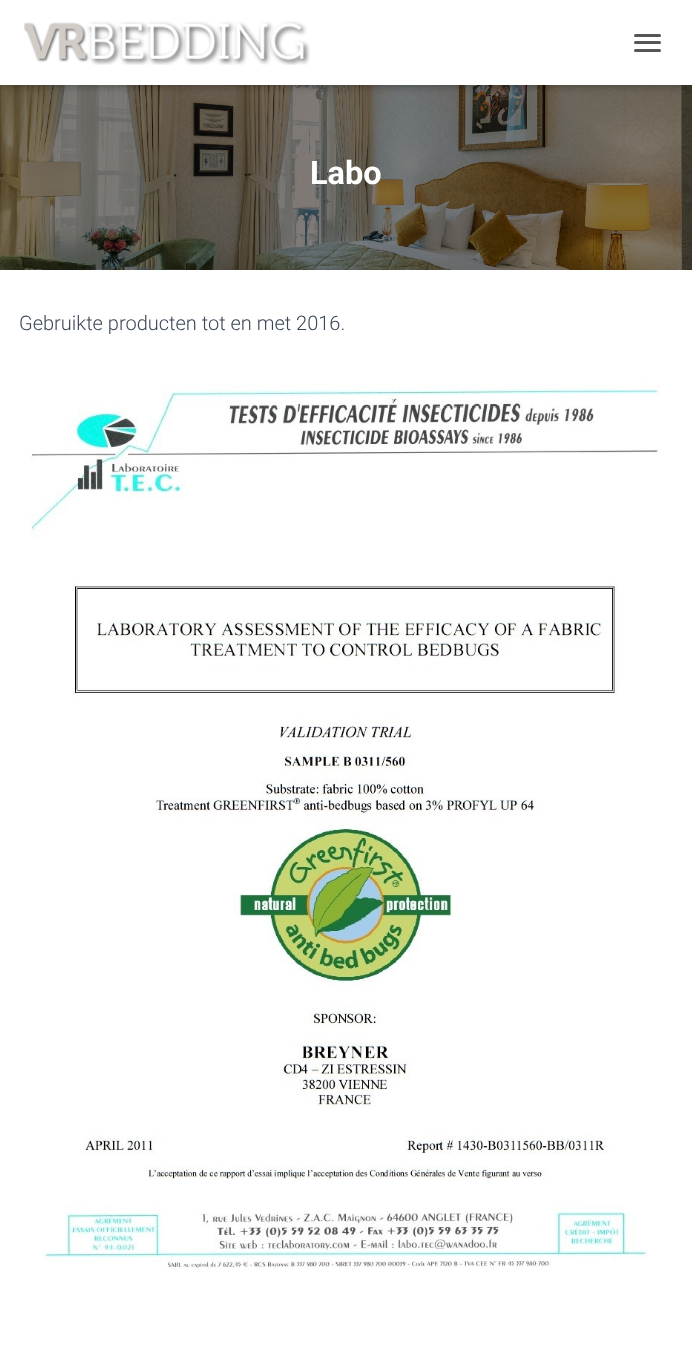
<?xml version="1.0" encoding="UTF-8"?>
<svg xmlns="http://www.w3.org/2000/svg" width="692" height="1368">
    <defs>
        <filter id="blur1" x="-50%" y="-200%" width="200%" height="500%"><feGaussianBlur stdDeviation="3"/></filter>
        <filter id="blur2" x="-50%" y="-200%" width="200%" height="500%"><feGaussianBlur stdDeviation="6"/></filter>
        <filter id="blur3" x="-50%" y="-200%" width="200%" height="500%"><feGaussianBlur stdDeviation="19"/></filter>
    </defs>
    <rect width="100%" height="100%" fill="#FFFFFF"/>
    <image x="0" y="85" width="692" height="185" href="img_02.png"/>
    <rect x="3" y="8" width="687" height="80" fill="#000000" fill-opacity="0.1" filter="url(#blur1)"/>
    <rect x="0" y="1" width="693" height="85" fill="#000000" fill-opacity="0.12" filter="url(#blur2)"/>
    <rect x="8" y="9" width="677" height="70" fill="#000000" fill-opacity="0.42" filter="url(#blur2)"/>
    <rect x="0" y="0" width="692" height="85" fill="#FFFFFF"/>
    <image x="24" y="21" width="286" height="44" href="img_01.png"/>
    <rect x="634" y="34" width="27" height="3" rx="1.5" fill="#555555"/>
    <rect x="634" y="41" width="27" height="3" rx="1.5" fill="#555555"/>
    <rect x="634" y="49" width="27" height="3" rx="1.5" fill="#555555"/>
    <text x="310" y="184" font-family="Roboto" font-size="32.5" font-weight="700" fill="#FFFFFF">Labo</text>
    <rect x="-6" y="271" width="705" height="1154" fill="#000000" fill-opacity="0.12" filter="url(#blur3)"/>
    <rect x="0" y="270" width="692" height="1098" fill="#FFFFFF"/>
    <text x="19" y="330" font-family="Roboto" font-size="20" font-weight="300" fill="#3C4858">Gebruikte producten tot en met 2016.</text>
    <image x="30" y="383" width="630" height="889" href="img_03.png"/>
</svg>
